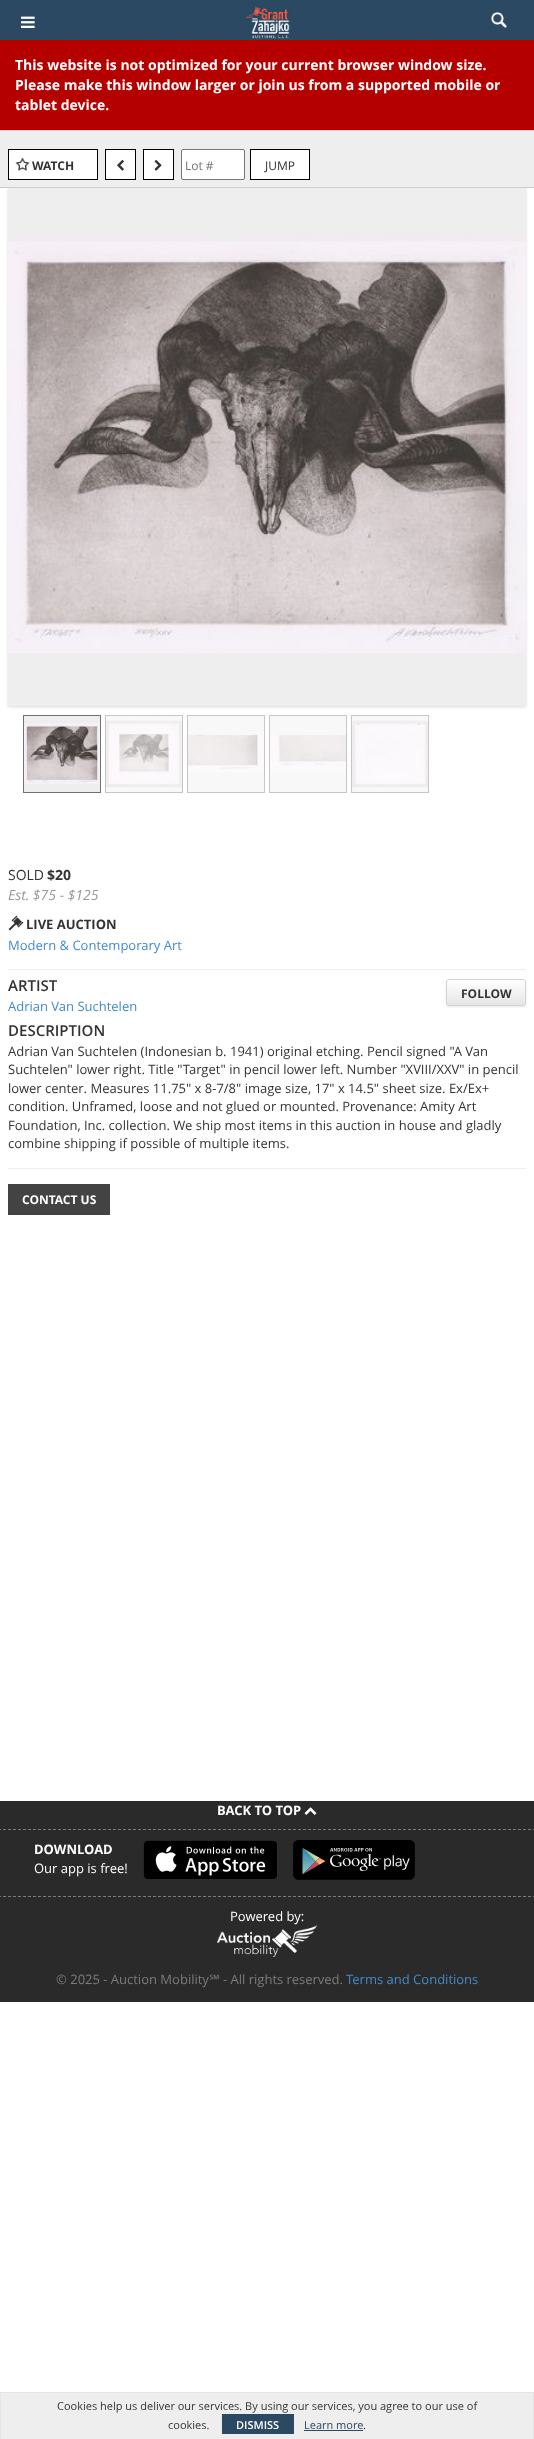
<?xml version="1.0" encoding="UTF-8"?>
<svg xmlns="http://www.w3.org/2000/svg" width="534" height="2439">
    <defs>
        <filter id="blur1" x="-50%" y="-200%" width="200%" height="500%"><feGaussianBlur stdDeviation="1.5"/></filter>
        <clipPath id="clip1"><rect x="446" y="979" width="80" height="27" rx="3"/></clipPath>
        <linearGradient id="g1" gradientUnits="userSpaceOnUse" x1="486" y1="980" x2="486" y2="1005"><stop offset="0" stop-color="#FFFFFF"/><stop offset="1" stop-color="#E6E6E6"/></linearGradient>
    </defs>
    <rect width="100%" height="100%" fill="#FFFFFF"/>
    <rect x="0" y="0" width="534" height="40" fill="#2B4963"/>
    <image x="21" y="16" width="14" height="12" href="img_01.png"/>
    <image x="245" y="6" width="45" height="33" href="img_02.png"/>
    <image x="491" y="12" width="16" height="16" href="img_03.png"/>
    <rect x="0" y="40" width="534" height="90" fill="#B50000"/>
    <rect x="0" y="130" width="534" height="1" fill="#EBCCD1"/>
    <text font-family="Open Sans" font-size="14" font-weight="700" fill="#FFFFFF">
        <tspan x="15" y="70">This website is not optimized for your current browser window size.</tspan>
        <tspan x="15" y="90">Please make this window larger or join us from a supported mobile or</tspan>
        <tspan x="15" y="110">tablet device.</tspan>
    </text>
    <rect x="0" y="131" width="534" height="56" fill="#EEEEEE"/>
    <rect x="0" y="187" width="534" height="1" fill="#CCCCCC"/>
    <rect x="8.5" y="149.5" width="89" height="30" fill="#FFFFFF" stroke="#000000"/>
    <image x="15" y="157" width="15" height="14" href="img_04.png"/>
    <text x="32" y="170" font-family="Open Sans" font-size="12" font-weight="700" fill="#333333">WATCH</text>
    <rect x="105.5" y="149.5" width="30" height="30" fill="#FFFFFF" stroke="#000000"/>
    <image x="117" y="159" width="7" height="12" href="img_05.png"/>
    <rect x="143.5" y="149.5" width="30" height="30" fill="#FFFFFF" stroke="#000000"/>
    <image x="154" y="159" width="8" height="12" href="img_06.png"/>
    <rect x="181.5" y="149.5" width="63" height="30" rx="1.5" fill="#FFFFFF" stroke="#767676"/>
    <text x="185" y="170" font-family="Open Sans" font-size="12" fill="#757575">Lot #</text>
    <rect x="250.5" y="149.5" width="59" height="30" fill="#FFFFFF" stroke="#000000"/>
    <text x="265" y="170" font-family="Open Sans" font-size="12" fill="#333333">JUMP</text>
    <rect x="8" y="189" width="518" height="518" fill="#DAD9D7" filter="url(#blur1)"/>
    <image x="8" y="188" width="518" height="518" href="img_07.png"/>
    <rect x="23.5" y="715.5" width="77" height="77" fill="none" stroke="#717171"/>
    <rect x="105.5" y="715.5" width="77" height="77" fill="none" stroke="#C6C6C6"/>
    <rect x="187.5" y="715.5" width="77" height="77" fill="none" stroke="#C6C6C6"/>
    <rect x="269.5" y="715.5" width="77" height="77" fill="none" stroke="#C6C6C6"/>
    <rect x="351.5" y="715.5" width="77" height="77" fill="none" stroke="#C6C6C6"/>
    <image x="24" y="716" width="76" height="76" href="img_08.png"/>
    <image x="106" y="716" width="76" height="76" href="img_09.png"/>
    <image x="188" y="716" width="76" height="76" href="img_10.png"/>
    <image x="270" y="716" width="76" height="76" href="img_11.png"/>
    <image x="352" y="716" width="76" height="76" href="img_12.png"/>
    <text x="8" y="880" font-family="Open Sans" font-size="14" fill="#333333">SOLD</text>
    <text x="47" y="880" font-family="Open Sans" font-size="14" font-weight="700" fill="#333333">$20</text>
    <text x="8" y="900" font-family="Open Sans" font-size="14" font-style="italic" fill="#999999">Est. $75 - $125</text>
    <image x="8" y="915" width="16" height="16" href="img_13.png"/>
    <text x="26" y="929" font-family="Open Sans" font-size="13" font-weight="700" fill="#333333">LIVE AUCTION</text>
    <text x="8" y="950" font-family="Open Sans" font-size="13" fill="#428BCA">Modern &amp; Contemporary Art</text>
    <rect x="8" y="969" width="518" height="1" fill="#EEEEEE"/>
    <text x="8" y="991" font-family="Open Sans" font-size="15" font-weight="600" fill="#333333">ARTIST</text>
    <rect x="447" y="981" width="78" height="25" rx="2" fill="#000000" fill-opacity="0.2" filter="url(#blur1)"/>
    <g clip-path="url(#clip1)">
        <rect x="446" y="980" width="80" height="25" fill="url(#g1)"/>
    </g>
    <rect x="446.5" y="979.5" width="79" height="26" rx="2.5" fill="none" stroke="#D4D4D4"/>
    <text x="461" y="998" font-family="Open Sans" font-size="12" font-weight="700" fill="#333333">FOLLOW</text>
    <text x="8" y="1011" font-family="Open Sans" font-size="13" fill="#428BCA">Adrian Van Suchtelen</text>
    <text x="8" y="1036" font-family="Open Sans" font-size="15" font-weight="600" fill="#333333">DESCRIPTION</text>
    <text font-family="Open Sans" font-size="13" fill="#333333">
        <tspan x="8" y="1056">Adrian Van Suchtelen (Indonesian b. 1941) original etching. Pencil signed "A Van</tspan>
        <tspan x="8" y="1074">Suchtelen" lower right. Title "Target" in pencil lower left. Number "XVIII/XXV" in pencil</tspan>
        <tspan x="8" y="1093">lower center. Measures 11.75" x 8-7/8" image size, 17" x 14.5" sheet size. Ex/Ex+</tspan>
        <tspan x="8" y="1111">condition. Unframed, loose and not glued or mounted. Provenance: Amity Art</tspan>
        <tspan x="8" y="1130">Foundation, Inc. collection. We ship most items in this auction in house and gladly</tspan>
        <tspan x="8" y="1148">combine shipping if possible of multiple items.</tspan>
    </text>
    <rect x="8" y="1168" width="518" height="1" fill="#EEEEEE"/>
    <rect x="8" y="1184" width="102" height="31" fill="#434343"/>
    <text x="22" y="1204" font-family="Open Sans" font-size="12" font-weight="700" fill="#FFFFFF">CONTACT US</text>
    <rect x="0" y="1801" width="534" height="201" fill="#2A2A2A"/>
    <path d="M -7 1829.5 H 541" fill="none" stroke="#7C7C7C" stroke-dasharray="3 2"/>
    <text x="217" y="1815" font-family="Open Sans" font-size="13" font-weight="700" fill="#FFFFFF">BACK TO TOP</text>
    <image x="304" y="1807" width="13" height="8" href="img_14.png"/>
    <path d="M -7 1896.5 H 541" fill="none" stroke="#7C7C7C" stroke-dasharray="3 2"/>
    <text x="34" y="1854" font-family="Open Sans" font-size="13" font-weight="700" fill="#FFFFFF">DOWNLOAD</text>
    <text x="34" y="1873" font-family="Open Sans" font-size="13" fill="#FFFFFF">Our app is free!</text>
    <image x="143" y="1840" width="134" height="39" href="img_15.png"/>
    <image x="293" y="1840" width="122" height="40" href="img_16.png"/>
    <text x="230" y="1921" font-family="Open Sans" font-size="13" fill="#FFFFFF">Powered by:</text>
    <image x="217" y="1925" width="100" height="32" href="img_17.png"/>
    <text x="56" y="1984" font-family="Open Sans" font-size="13" fill="#7C7C7C">© 2025 - Auction Mobility</text>
    <text x="209" y="1984" font-family="Noto Sans" font-size="13" fill="#7C7C7C">℠</text>
    <text x="223" y="1984" font-family="Open Sans" font-size="13" fill="#7C7C7C">- All rights reserved.</text>
    <text x="346" y="1984" font-family="Open Sans" font-size="13" fill="#428BCA">Terms and Conditions</text>
    <rect x="1" y="2393" width="532" height="46" fill="#EEEEEE"/>
    <rect x="0" y="2392" width="534" height="1" fill="#E4E4E4"/>
    <rect x="533" y="2392" width="1" height="47" fill="#E4E4E4"/>
    <rect x="0" y="2392" width="1" height="47" fill="#E4E4E4"/>
    <text x="57" y="2410" font-family="Open Sans" font-size="11" fill="#333333">Cookies help us deliver our services. By using our services, you agree to our use of</text>
    <text x="168" y="2429" font-family="Open Sans" font-size="11" fill="#333333">cookies.</text>
    <rect x="222" y="2414" width="72" height="20" fill="#2B4963"/>
    <text x="236" y="2429" font-family="Open Sans" font-size="11" font-weight="600" fill="#FFFFFF">DISMISS</text>
    <text x="304" y="2429" font-family="Open Sans" font-size="11" fill="#2B4963">Learn more</text>
    <rect x="304" y="2430" width="59" height="1" fill="#2B4963"/>
    <text x="363" y="2429" font-family="Open Sans" font-size="11" fill="#333333">.</text>
</svg>
